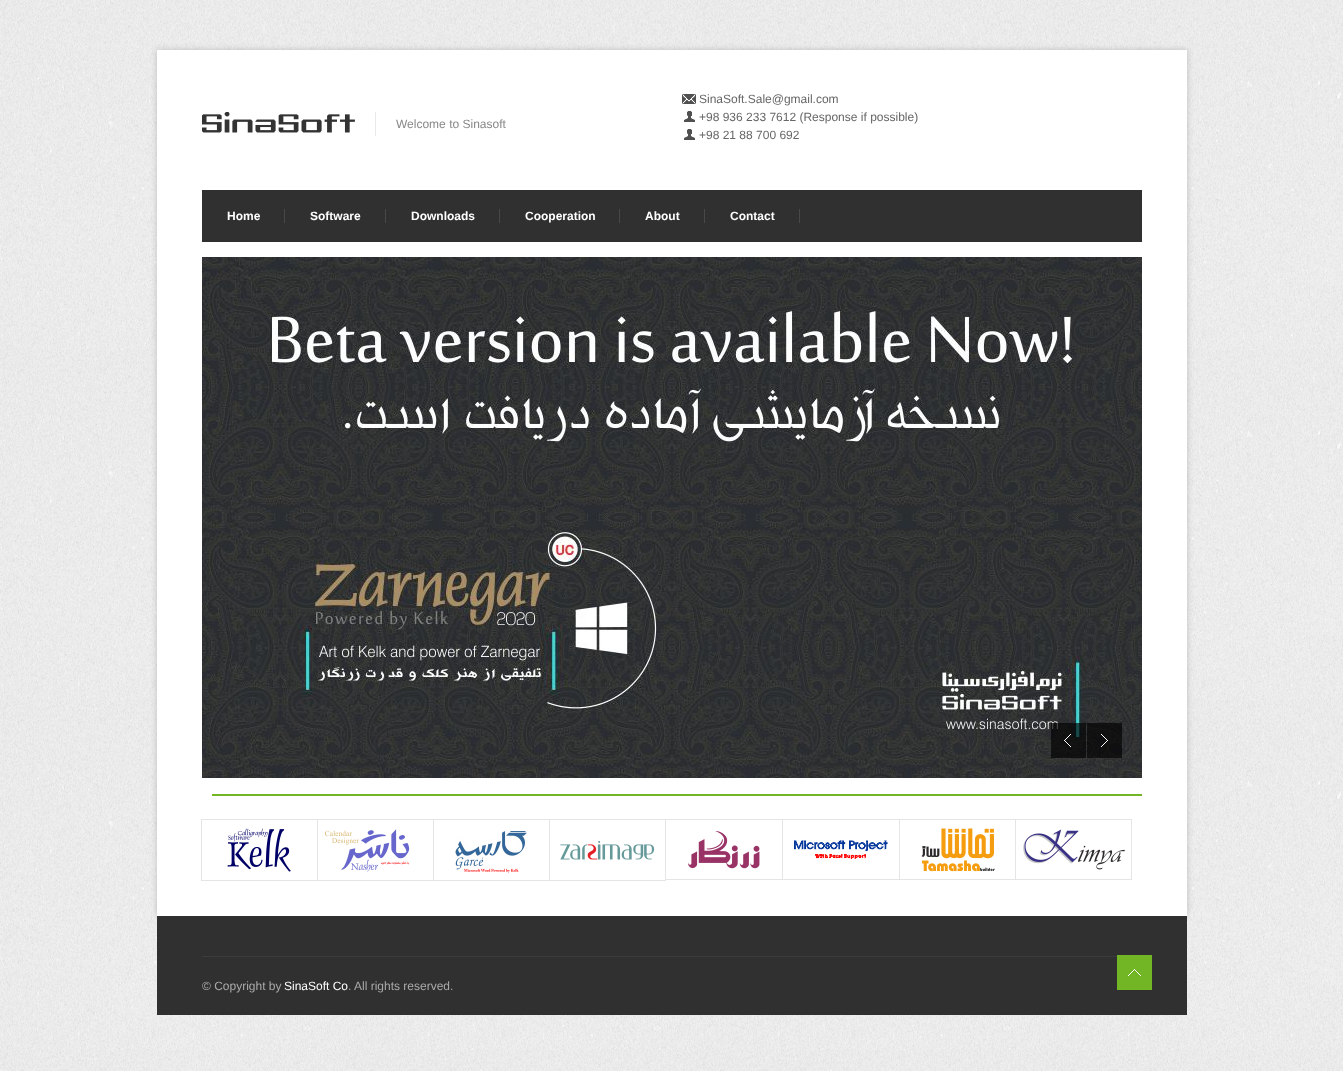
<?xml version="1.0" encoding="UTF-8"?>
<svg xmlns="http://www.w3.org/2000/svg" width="1343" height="1071">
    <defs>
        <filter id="blur1" x="-50%" y="-200%" width="200%" height="500%"><feGaussianBlur stdDeviation="3"/></filter>
    </defs>
    <rect width="100%" height="100%" fill="#FFFFFF"/>
    <image x="0" y="0" width="1343" height="1071" href="img_01.png"/>
    <rect x="157" y="50" width="1030" height="866" fill="#000000" fill-opacity="0.2" filter="url(#blur1)"/>
    <rect x="157" y="50" width="1030" height="866" fill="#FFFFFF"/>
    <image x="202" y="112" width="153" height="21" href="img_02.png"/>
    <rect x="375" y="112" width="1" height="24" fill="#E9E9E9"/>
    <text x="396" y="128" font-family="Liberation Sans" font-size="12" fill="#888888">Welcome to Sinasoft</text>
    <image x="682" y="94" width="14" height="10" href="img_03.png"/>
    <text x="699" y="103" font-family="Liberation Sans" font-size="12" fill="#666666">SinaSoft.Sale@gmail.com</text>
    <image x="684" y="111" width="11" height="11" href="img_04.png"/>
    <text x="699" y="121" font-family="Liberation Sans" font-size="12" fill="#666666">+98 936 233 7612 (Response if possible)</text>
    <image x="684" y="129" width="11" height="11" href="img_04.png"/>
    <text x="699" y="139" font-family="Liberation Sans" font-size="12" fill="#666666">+98 21 88 700 692</text>
    <rect x="202" y="190" width="940" height="52" fill="#303030"/>
    <rect x="284" y="209" width="1" height="14" fill="#484848"/>
    <text x="227" y="220" font-family="Liberation Sans" font-size="12" font-weight="700" fill="#FFFFFF">Home</text>
    <rect x="385" y="209" width="1" height="14" fill="#484848"/>
    <text x="310" y="220" font-family="Liberation Sans" font-size="12" font-weight="700" fill="#FFFFFF">Software</text>
    <rect x="499" y="209" width="1" height="14" fill="#484848"/>
    <text x="411" y="220" font-family="Liberation Sans" font-size="12" font-weight="700" fill="#FFFFFF">Downloads</text>
    <rect x="619" y="209" width="1" height="14" fill="#484848"/>
    <text x="525" y="220" font-family="Liberation Sans" font-size="12" font-weight="700" fill="#FFFFFF">Cooperation</text>
    <rect x="704" y="209" width="1" height="14" fill="#484848"/>
    <text x="645" y="220" font-family="Liberation Sans" font-size="12" font-weight="700" fill="#FFFFFF">About</text>
    <rect x="799" y="209" width="1" height="14" fill="#484848"/>
    <text x="730" y="220" font-family="Liberation Sans" font-size="12" font-weight="700" fill="#FFFFFF">Contact</text>
    <image x="202" y="257" width="940" height="521" href="img_05.png"/>
    <rect x="1051" y="723" width="35" height="35" fill="#000000" fill-opacity="0.65"/>
    <image x="1064" y="734" width="7" height="13" href="img_06.png"/>
    <rect x="1087" y="723" width="35" height="35" fill="#000000" fill-opacity="0.65"/>
    <image x="1101" y="734" width="7" height="13" href="img_07.png"/>
    <rect x="212" y="794" width="930" height="2" fill="#72B626"/>
    <rect x="201.5" y="819.5" width="116" height="61" fill="none" stroke="#E5E5E5"/>
    <image x="227" y="828" width="64" height="44" href="img_08.png"/>
    <rect x="317.5" y="819.5" width="116" height="61" fill="none" stroke="#E5E5E5"/>
    <image x="325" y="829" width="85" height="43" href="img_09.png"/>
    <rect x="433.5" y="819.5" width="116" height="61" fill="none" stroke="#E5E5E5"/>
    <image x="455" y="831" width="72" height="42" href="img_10.png"/>
    <rect x="549.5" y="819.5" width="116" height="61" fill="none" stroke="#E5E5E5"/>
    <image x="560" y="841" width="95" height="19" href="img_11.png"/>
    <rect x="665.5" y="819.5" width="117" height="60" fill="none" stroke="#E5E5E5"/>
    <image x="688" y="831" width="72" height="38" href="img_12.png"/>
    <rect x="782.5" y="819.5" width="117" height="60" fill="none" stroke="#E5E5E5"/>
    <image x="794" y="840" width="94" height="19" href="img_13.png"/>
    <rect x="899.5" y="819.5" width="116" height="60" fill="none" stroke="#E5E5E5"/>
    <image x="921" y="828" width="74" height="44" href="img_14.png"/>
    <rect x="1015.5" y="819.5" width="116" height="60" fill="none" stroke="#E5E5E5"/>
    <image x="1023" y="829" width="102" height="41" href="img_15.png"/>
    <rect x="157" y="916" width="1030" height="99" fill="#303030"/>
    <rect x="202" y="956" width="915" height="1" fill="#3C3C3C"/>
    <text x="202" y="990" font-family="Liberation Sans" font-size="12" fill="#AAAAAA">© Copyright by</text>
    <text x="284" y="990" font-family="Liberation Sans" font-size="12" fill="#FFFFFF">SinaSoft Co</text>
    <text x="348" y="990" font-family="Liberation Sans" font-size="12" fill="#AAAAAA">. All rights reserved.</text>
    <rect x="1117" y="955" width="35" height="35" fill="#72B626"/>
    <image x="1128" y="969" width="13" height="7" href="img_16.png"/>
</svg>
